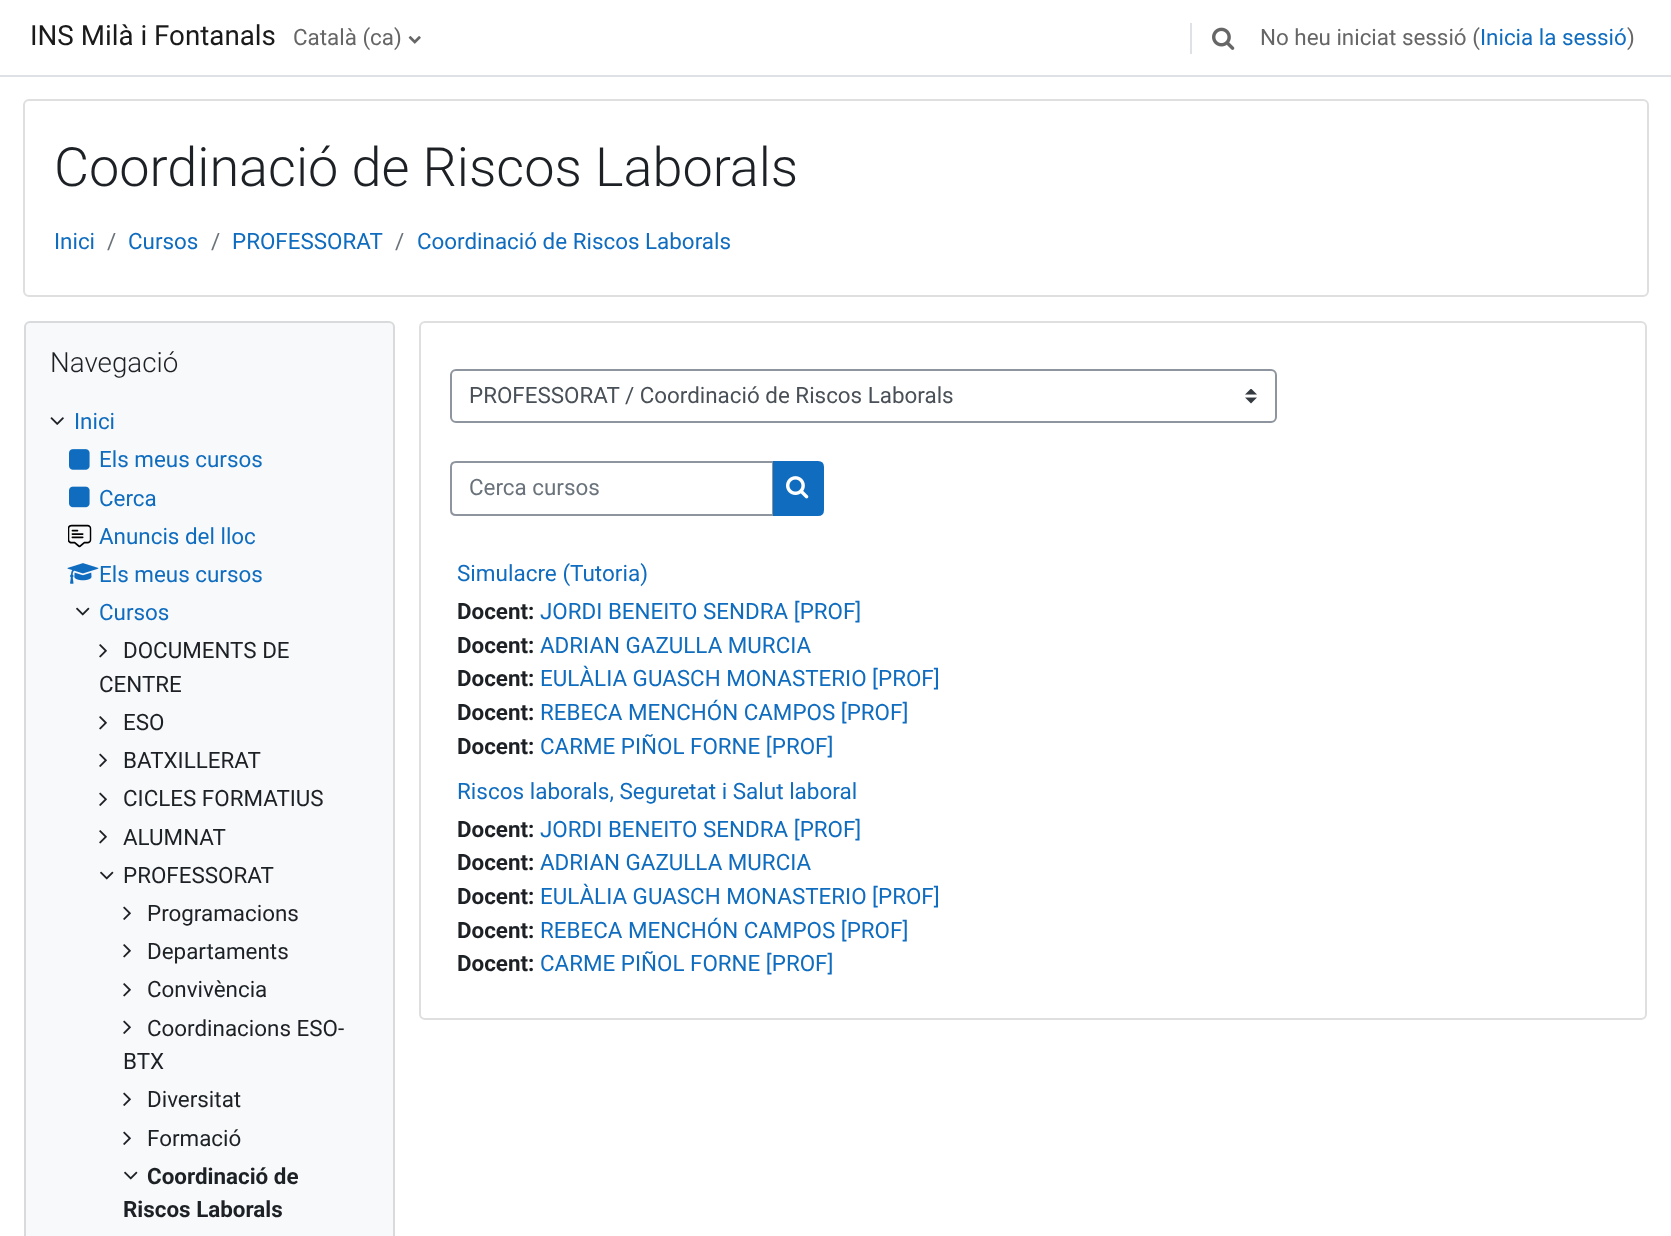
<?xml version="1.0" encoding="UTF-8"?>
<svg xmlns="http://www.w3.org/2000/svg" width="1671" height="1236">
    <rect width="100%" height="100%" fill="#FFFFFF"/>
    <rect x="0" y="75" width="1671" height="2" fill="#DEE2E6"/>
    <text x="30" y="45" font-family="Roboto" font-size="27.75" fill="#1A1A1A">INS Milà i Fontanals</text>
    <text x="293" y="45" font-family="Roboto" font-size="22.4" fill="#666666">Català (ca)</text>
    <image x="408" y="36" width="13" height="8" href="img_01.png"/>
    <rect x="1190" y="23" width="2" height="31" fill="#DEE2E6"/>
    <image x="1212" y="27" width="23" height="23" href="img_02.png"/>
    <text x="1260" y="45" font-family="Roboto" font-size="22.4" fill="#666666">No heu iniciat sessió (</text>
    <text x="1480" y="45" font-family="Roboto" font-size="22.4" fill="#0F6CBF">Inicia la sessió</text>
    <text x="1627" y="45" font-family="Roboto" font-size="22.4" fill="#666666">)</text>
    <rect x="24" y="100" width="1624" height="196" rx="5" fill="none" stroke="#DFDFDF" stroke-width="2"/>
    <text x="54" y="186" font-family="Roboto" font-size="54" font-weight="300" fill="#1D2125">Coordinació de Riscos Laborals</text>
    <text x="54" y="249" font-family="Roboto" font-size="22.4" fill="#0F6CBF">Inici</text>
    <text x="107" y="249" font-family="Roboto" font-size="22.4" fill="#6A737B">/</text>
    <text x="128" y="249" font-family="Roboto" font-size="22.4" fill="#0F6CBF">Cursos</text>
    <text x="211" y="249" font-family="Roboto" font-size="22.4" fill="#6A737B">/</text>
    <text x="232" y="249" font-family="Roboto" font-size="22.4" fill="#0F6CBF">PROFESSORAT</text>
    <text x="395" y="249" font-family="Roboto" font-size="22.4" fill="#6A737B">/</text>
    <text x="417" y="249" font-family="Roboto" font-size="22.4" fill="#0F6CBF">Coordinació de Riscos Laborals</text>
    <rect x="25" y="322" width="369" height="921" rx="5" fill="#F8F9FA" stroke="#D9DADB" stroke-width="2"/>
    <text x="50" y="372" font-family="Roboto" font-size="27.75" font-weight="300" fill="#1D2125">Navegació</text>
    <image x="50" y="417" width="14" height="8" href="img_03.png"/>
    <text x="74" y="429" font-family="Roboto" font-size="22.4" fill="#0F6CBF">Inici</text>
    <image x="69" y="449" width="21" height="21" href="img_04.png"/>
    <text x="99" y="467" font-family="Roboto" font-size="22.4" fill="#0F6CBF">Els meus cursos</text>
    <image x="69" y="486" width="21" height="22" href="img_05.png"/>
    <text x="99" y="506" font-family="Roboto" font-size="22.4" fill="#0F6CBF">Cerca</text>
    <image x="68" y="524" width="24" height="24" href="img_06.png"/>
    <text x="99" y="544" font-family="Roboto" font-size="22.4" fill="#0F6CBF">Anuncis del lloc</text>
    <image x="67" y="563" width="32" height="21" href="img_07.png"/>
    <text x="99" y="582" font-family="Roboto" font-size="22.4" fill="#0F6CBF">Els meus cursos</text>
    <image x="76" y="607" width="14" height="9" href="img_08.png"/>
    <text x="99" y="620" font-family="Roboto" font-size="22.4" fill="#0F6CBF">Cursos</text>
    <image x="99" y="644" width="8" height="14" href="img_09.png"/>
    <text x="123" y="658" font-family="Roboto" font-size="22.4" fill="#1D2125">DOCUMENTS DE</text>
    <text x="99" y="692" font-family="Roboto" font-size="22.4" fill="#1D2125">CENTRE</text>
    <image x="99" y="716" width="8" height="14" href="img_09.png"/>
    <text x="123" y="730" font-family="Roboto" font-size="22.4" fill="#1D2125">ESO</text>
    <image x="99" y="753" width="8" height="14" href="img_10.png"/>
    <text x="123" y="768" font-family="Roboto" font-size="22.4" fill="#1D2125">BATXILLERAT</text>
    <image x="99" y="792" width="8" height="14" href="img_10.png"/>
    <text x="123" y="806" font-family="Roboto" font-size="22.4" fill="#1D2125">CICLES FORMATIUS</text>
    <image x="99" y="830" width="8" height="14" href="img_09.png"/>
    <text x="123" y="845" font-family="Roboto" font-size="22.4" fill="#1D2125">ALUMNAT</text>
    <image x="100" y="871" width="14" height="9" href="img_08.png"/>
    <text x="123" y="883" font-family="Roboto" font-size="22.4" fill="#1D2125">PROFESSORAT</text>
    <image x="123" y="906" width="8" height="14" href="img_10.png"/>
    <text x="147" y="921" font-family="Roboto" font-size="22.4" fill="#1D2125">Programacions</text>
    <image x="123" y="944" width="8" height="14" href="img_09.png"/>
    <text x="147" y="959" font-family="Roboto" font-size="22.4" fill="#1D2125">Departaments</text>
    <image x="123" y="983" width="8" height="14" href="img_09.png"/>
    <text x="147" y="997" font-family="Roboto" font-size="22.4" fill="#1D2125">Convivència</text>
    <image x="123" y="1020" width="8" height="14" href="img_10.png"/>
    <text x="147" y="1036" font-family="Roboto" font-size="22.4" fill="#1D2125">Coordinacions ESO-</text>
    <text x="123" y="1069" font-family="Roboto" font-size="22.4" fill="#1D2125">BTX</text>
    <image x="123" y="1092" width="8" height="14" href="img_10.png"/>
    <text x="147" y="1107" font-family="Roboto" font-size="22.4" fill="#1D2125">Diversitat</text>
    <image x="123" y="1131" width="8" height="14" href="img_10.png"/>
    <text x="147" y="1146" font-family="Roboto" font-size="22.4" fill="#1D2125">Formació</text>
    <image x="124" y="1171" width="14" height="9" href="img_08.png"/>
    <text x="147" y="1184" font-family="Roboto" font-size="22.4" font-weight="700" fill="#1D2125">Coordinació de</text>
    <text x="123" y="1217" font-family="Roboto" font-size="22.4" font-weight="700" fill="#1D2125">Riscos Laborals</text>
    <rect x="420" y="322" width="1226" height="697" rx="5" fill="none" stroke="#DFDFDF" stroke-width="2"/>
    <image x="1245" y="389" width="12" height="15" href="img_11.png"/>
    <rect x="451" y="370" width="825" height="52" rx="5" fill="none" stroke="#8F959E" stroke-width="2"/>
    <text x="469" y="403" font-family="Roboto" font-size="22.4" fill="#495057">PROFESSORAT / Coordinació de Riscos Laborals</text>
    <path d="M 456 462 H 773 V 515 H 456 C 453 515 451 513 451 510 V 467 C 451 464 453 462 456 462 Z" fill="none" stroke="#8F959E" stroke-width="2"/>
    <text x="469" y="495" font-family="Roboto" font-size="22.4" fill="#6A737B">Cerca cursos</text>
    <path d="M 774 462 H 818 C 821 462 823 464 823 467 V 510 C 823 513 821 515 818 515 H 774 Z" fill="#0F6CBF" stroke="#0F6CBF" stroke-width="2"/>
    <image x="786" y="476" width="23" height="23" href="img_12.png"/>
    <text x="457" y="581" font-family="Roboto" font-size="22.5" fill="#0F6CBF">Simulacre (Tutoria)</text>
    <text x="457" y="619" font-family="Roboto" font-size="22.4" font-weight="700" fill="#1D2125">Docent:</text>
    <text x="540" y="619" font-family="Roboto" font-size="22.4" fill="#0F6CBF">JORDI BENEITO SENDRA [PROF]</text>
    <text x="457" y="653" font-family="Roboto" font-size="22.4" font-weight="700" fill="#1D2125">Docent:</text>
    <text x="540" y="653" font-family="Roboto" font-size="22.4" fill="#0F6CBF">ADRIAN GAZULLA MURCIA</text>
    <text x="457" y="686" font-family="Roboto" font-size="22.4" font-weight="700" fill="#1D2125">Docent:</text>
    <text x="540" y="686" font-family="Roboto" font-size="22.4" fill="#0F6CBF">EULÀLIA GUASCH MONASTERIO [PROF]</text>
    <text x="457" y="720" font-family="Roboto" font-size="22.4" font-weight="700" fill="#1D2125">Docent:</text>
    <text x="540" y="720" font-family="Roboto" font-size="22.4" fill="#0F6CBF">REBECA MENCHÓN CAMPOS [PROF]</text>
    <text x="457" y="754" font-family="Roboto" font-size="22.4" font-weight="700" fill="#1D2125">Docent:</text>
    <text x="540" y="754" font-family="Roboto" font-size="22.4" fill="#0F6CBF">CARME PIÑOL FORNE [PROF]</text>
    <text x="457" y="799" font-family="Roboto" font-size="22.5" fill="#0F6CBF">Riscos laborals, Seguretat i Salut laboral</text>
    <text x="457" y="837" font-family="Roboto" font-size="22.4" font-weight="700" fill="#1D2125">Docent:</text>
    <text x="540" y="837" font-family="Roboto" font-size="22.4" fill="#0F6CBF">JORDI BENEITO SENDRA [PROF]</text>
    <text x="457" y="870" font-family="Roboto" font-size="22.4" font-weight="700" fill="#1D2125">Docent:</text>
    <text x="540" y="870" font-family="Roboto" font-size="22.4" fill="#0F6CBF">ADRIAN GAZULLA MURCIA</text>
    <text x="457" y="904" font-family="Roboto" font-size="22.4" font-weight="700" fill="#1D2125">Docent:</text>
    <text x="540" y="904" font-family="Roboto" font-size="22.4" fill="#0F6CBF">EULÀLIA GUASCH MONASTERIO [PROF]</text>
    <text x="457" y="938" font-family="Roboto" font-size="22.4" font-weight="700" fill="#1D2125">Docent:</text>
    <text x="540" y="938" font-family="Roboto" font-size="22.4" fill="#0F6CBF">REBECA MENCHÓN CAMPOS [PROF]</text>
    <text x="457" y="971" font-family="Roboto" font-size="22.4" font-weight="700" fill="#1D2125">Docent:</text>
    <text x="540" y="971" font-family="Roboto" font-size="22.4" fill="#0F6CBF">CARME PIÑOL FORNE [PROF]</text>
</svg>
